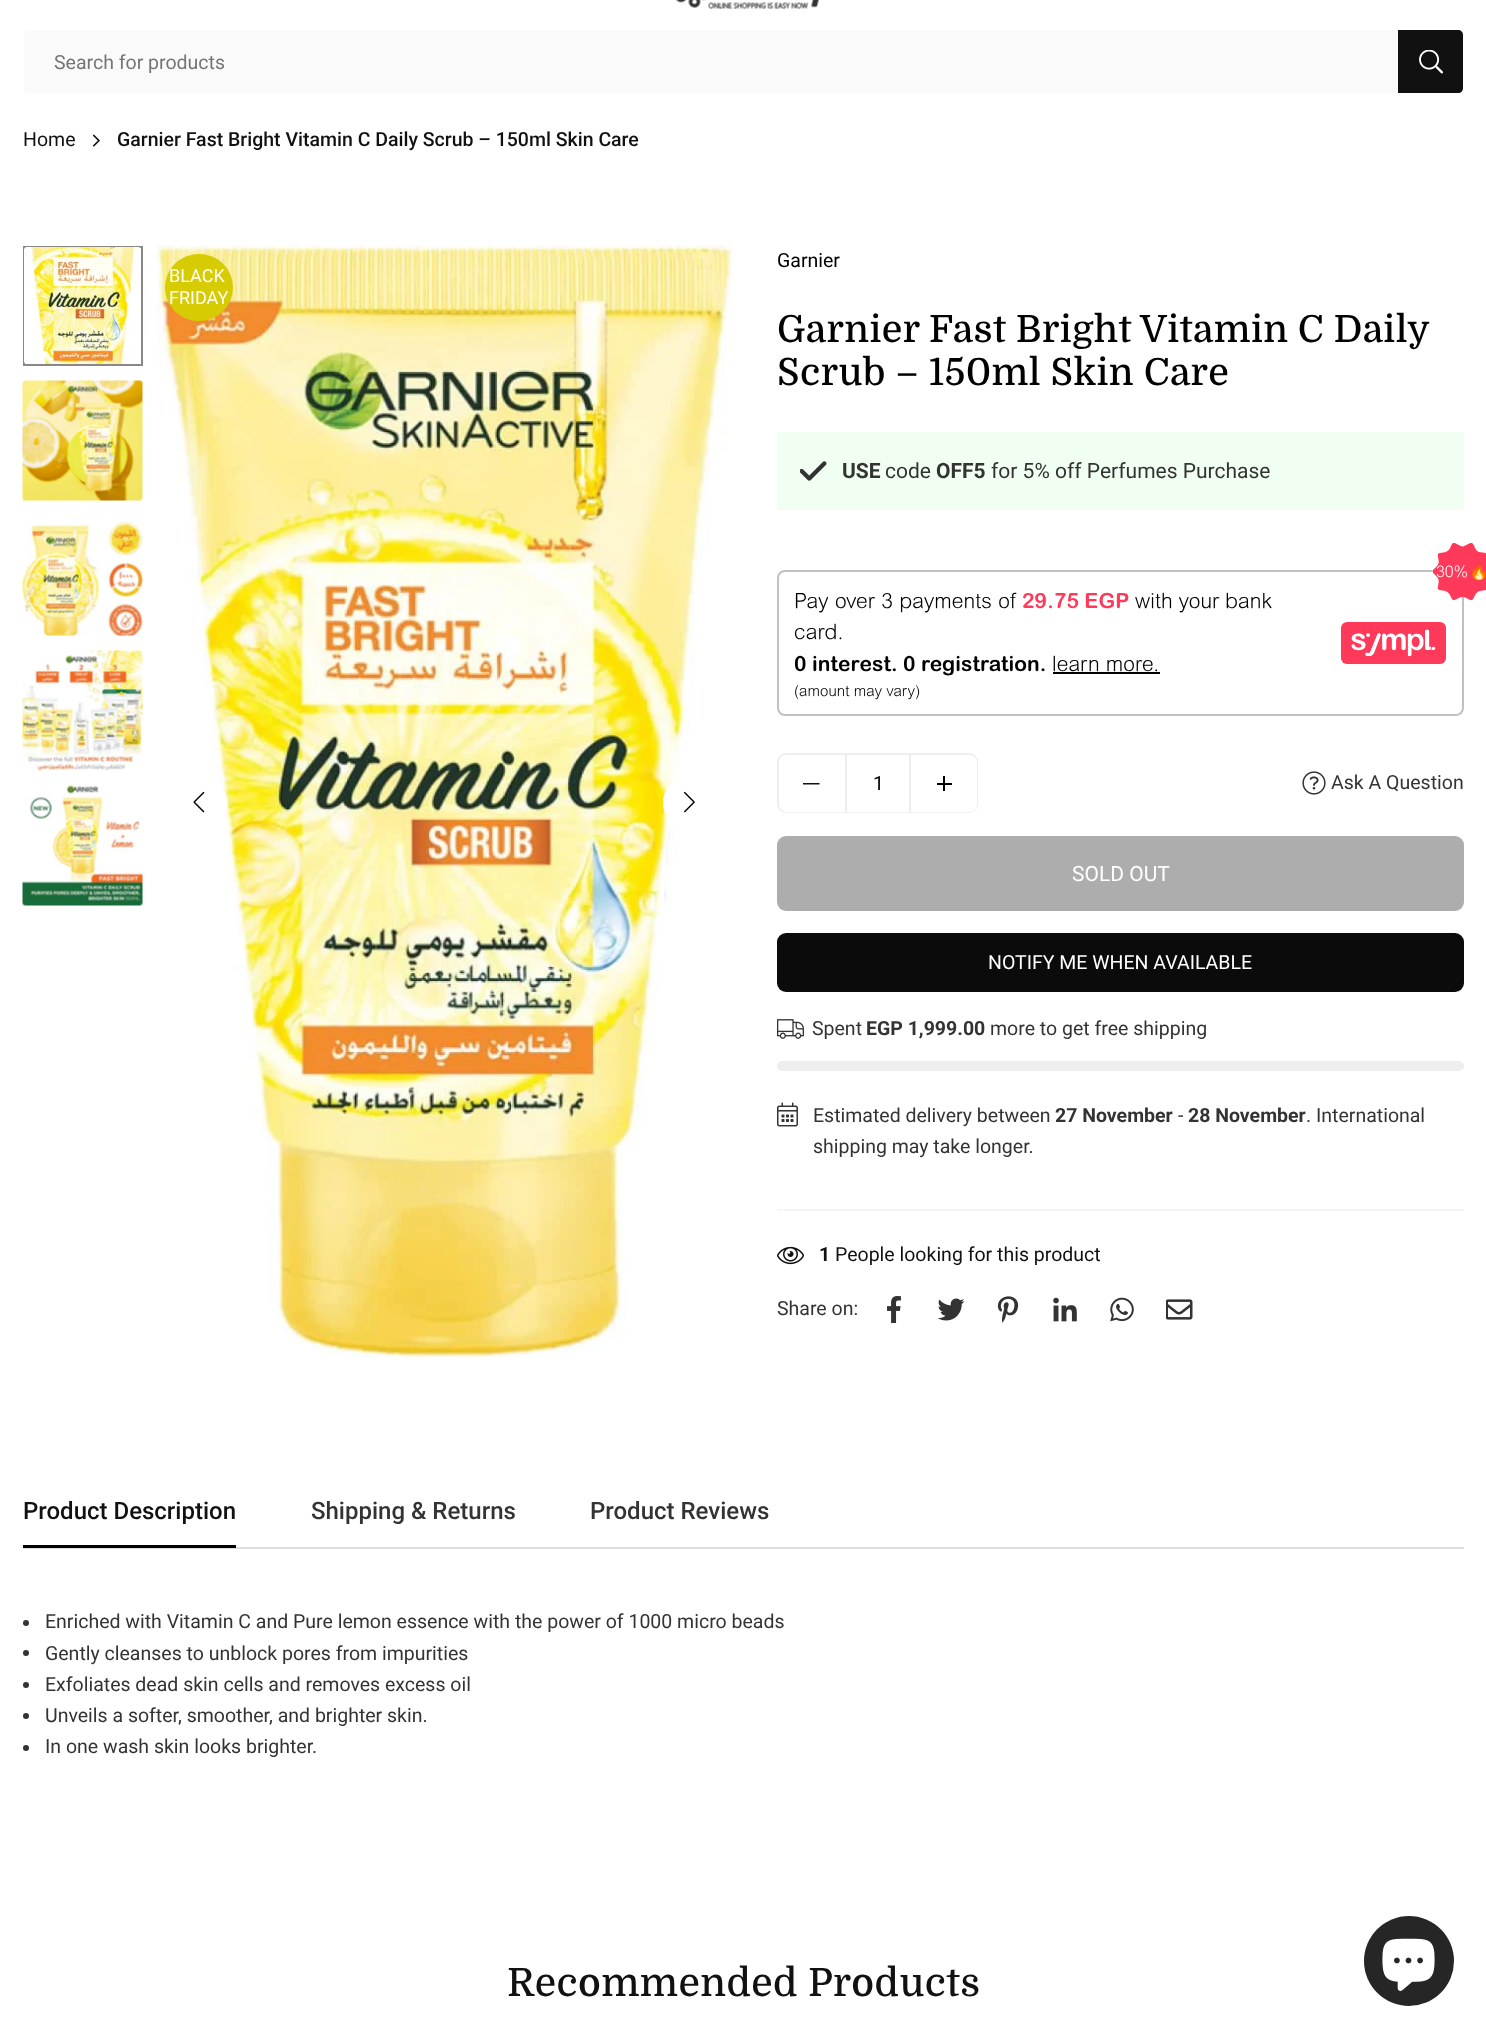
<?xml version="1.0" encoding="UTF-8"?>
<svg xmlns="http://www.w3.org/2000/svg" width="1486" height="2036">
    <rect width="100%" height="100%" fill="#FFFFFF"/>
    <image x="676" y="0" width="143" height="10" href="img_01.png"/>
    <path d="M 29 30 H 1398 V 93 H 29 C 26 93 24 91 24 88 V 35 C 24 32 26 30 29 30 Z" fill="#FAFAFA"/>
    <text x="54" y="69" font-family="Roboto" font-size="19.5" fill="#757575">Search for products</text>
    <path d="M 1398 30 H 1458 C 1461 30 1463 32 1463 35 V 88 C 1463 91 1461 93 1458 93 H 1398 Z" fill="#111111"/>
    <image x="1419" y="50" width="24" height="24" href="img_02.png"/>
    <text x="23" y="146" font-family="Roboto" font-size="19.5" fill="#111111">Home</text>
    <image x="92" y="134" width="8" height="13" href="img_03.png"/>
    <text x="117" y="146" font-family="Roboto" font-size="19.5" font-weight="500" fill="#111111">Garnier Fast Bright Vitamin C Daily Scrub – 150ml Skin Care</text>
    <rect x="24" y="247" width="118" height="118" fill="none" stroke="#888888" stroke-width="2"/>
    <image x="24" y="247" width="117" height="117" href="img_04.png"/>
    <image x="22" y="380" width="121" height="121" href="img_05.png"/>
    <image x="22" y="516" width="121" height="120" href="img_06.png"/>
    <image x="22" y="650" width="121" height="121" href="img_07.png"/>
    <image x="22" y="785" width="121" height="121" href="img_08.png"/>
    <image x="157" y="245" width="575" height="1112" href="img_09.png"/>
    <circle cx="200" cy="803" r="27" fill="#FFFFFF"/>
    <image x="193" y="791" width="12" height="22" href="img_10.png"/>
    <circle cx="690" cy="803" r="27" fill="#FFFFFF"/>
    <image x="684" y="791" width="11" height="22" href="img_11.png"/>
    <rect x="165" y="254" width="68" height="67" rx="33.5" fill="#D7CB04"/>
    <text font-family="Roboto" font-size="18" fill="#FFFFFF">
        <tspan x="169" y="282">BLACK</tspan>
        <tspan x="169" y="304">FRIDAY</tspan>
    </text>
    <text x="777" y="267" font-family="Roboto" font-size="19.5" fill="#000000">Garnier</text>
    <text font-family="Domine" font-size="37.5" font-weight="500" letter-spacing="0.4" fill="#000000">
        <tspan x="777" y="342" word-spacing="-0.25">Garnier Fast Bright Vitamin C Daily</tspan>
        <tspan x="777" y="385">Scrub – 150ml Skin Care</tspan>
    </text>
    <rect x="777" y="432" width="687" height="78" fill="#F1FFF2"/>
    <image x="800" y="461" width="27" height="20" href="img_12.png"/>
    <text x="842" y="478" font-family="Roboto" font-size="21" font-weight="700" fill="#333333">USE</text>
    <text x="885" y="478" font-family="Roboto" font-size="21" fill="#333333">code</text>
    <text x="936" y="478" font-family="Roboto" font-size="21" font-weight="700" fill="#333333">OFF5</text>
    <text x="991" y="478" font-family="Roboto" font-size="21" fill="#333333">for 5% off Perfumes Purchase</text>
    <rect x="778" y="571" width="685" height="144" rx="7" fill="none" stroke="#C1C1C1" stroke-width="2"/>
    <image x="1433" y="543" width="53" height="57" href="img_13.png"/>
    <text x="1436" y="577" font-family="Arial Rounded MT" font-size="16" font-weight="300" fill="#FFFFFF">30%</text>
    <text x="1469" y="577" font-family="Noto Color Emoji" font-size="16" fill="#FFFFFF">🔥</text>
    <text x="794" y="608" word-spacing="0.5" font-family="Arial Rounded MT" font-size="21" font-weight="300" letter-spacing="0.1" fill="#000000">Pay over 3 payments of</text>
    <text x="1022" y="608" font-family="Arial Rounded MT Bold" font-size="21" font-weight="700" letter-spacing="0.1" fill="#FF395A">29.75 EGP</text>
    <text x="1135" y="608" font-family="Arial Rounded MT" font-size="21" font-weight="300" letter-spacing="0.1" fill="#000000">with your bank</text>
    <text x="794" y="639" font-family="Arial Rounded MT" font-size="21" font-weight="300" letter-spacing="0.1" fill="#000000">card.</text>
    <text x="794" y="671" font-family="Arial Rounded MT Bold" font-size="21" font-weight="700" letter-spacing="0.1" fill="#000000">0 interest. 0 registration.</text>
    <text x="1052" y="671" font-family="Arial Rounded MT" font-size="21" font-weight="300" letter-spacing="0.1" fill="#000000">learn more.</text>
    <rect x="1053" y="672" width="107" height="2" fill="#000000"/>
    <text x="794" y="696" font-family="Arial Rounded MT" font-size="15" font-weight="300" letter-spacing="0.1" fill="#000000">(amount may vary)</text>
    <image x="1341" y="622" width="105" height="42" href="img_14.png"/>
    <rect x="778" y="754" width="199" height="58" rx="8" fill="none" stroke="#EEEEEE" stroke-width="2"/>
    <path d="M 787 755 H 845 V 812 H 787 C 782.5 812 779 808.5 779 804 V 763 C 779 758.5 782.5 755 787 755 Z" fill="#FFFFFF"/>
    <image x="803" y="783" width="17" height="2" href="img_15.png"/>
    <rect x="847" y="811" width="62" height="1" fill="#FFFFFF"/>
    <rect x="909" y="755" width="2" height="57" fill="#EEEEEE"/>
    <rect x="845" y="755" width="2" height="57" fill="#EEEEEE"/>
    <text x="873" y="790" font-family="Roboto" font-size="19.5" fill="#000000">1</text>
    <path d="M 911 755 H 969 C 973.5 755 977 758.5 977 763 V 804 C 977 808.5 973.5 812 969 812 H 911 Z" fill="#FFFFFF"/>
    <rect x="937" y="783" width="15" height="2" fill="#000000"/>
    <rect x="943" y="776" width="2" height="15" fill="#000000"/>
    <image x="1302" y="771" width="24" height="24" href="img_16.png"/>
    <text x="1331" y="789" font-family="Roboto" font-size="19.5" fill="#333333">Ask A Question</text>
    <rect x="777" y="836" width="687" height="75" rx="9" fill="#ADADAD"/>
    <text x="1072" y="881" font-family="Roboto" font-size="21" fill="#FFFFFF">SOLD OUT</text>
    <rect x="777" y="933" width="687" height="59" rx="9" fill="#0B0B0B"/>
    <text x="988" y="969" font-family="Roboto" font-size="19.5" fill="#FFFFFF">NOTIFY ME WHEN AVAILABLE</text>
    <image x="777" y="1019" width="27" height="20" href="img_17.png"/>
    <text x="812" y="1035" font-family="Roboto" font-size="19.5" fill="#333333">Spent</text>
    <text x="866" y="1035" font-family="Roboto" font-size="19.5" font-weight="700" fill="#333333">EGP 1,999.00</text>
    <text x="990" y="1035" font-family="Roboto" font-size="19.5" fill="#333333">more to get free shipping</text>
    <rect x="777" y="1061" width="687" height="10" rx="5" fill="#EEEEEE"/>
    <image x="777" y="1102" width="21" height="25" href="img_18.png"/>
    <text x="813" y="1122" font-family="Roboto" font-size="19.5" fill="#333333">Estimated delivery between</text>
    <text x="1055" y="1122" font-family="Roboto" font-size="19.5" font-weight="700" fill="#333333">27 November</text>
    <text x="1178" y="1122" font-family="Roboto" font-size="19.5" fill="#333333">-</text>
    <text x="1188" y="1122" font-family="Roboto" font-size="19.5" font-weight="700" fill="#333333">28 November</text>
    <text x="1306" y="1122" font-family="Roboto" font-size="19.5" fill="#333333">. International</text>
    <text x="813" y="1153" font-family="Roboto" font-size="19.5" fill="#333333">shipping may take longer.</text>
    <rect x="777" y="1209" width="687" height="2" fill="#F5F5F5"/>
    <image x="777" y="1246" width="27" height="19" href="img_19.png"/>
    <text x="819" y="1261" font-family="Roboto" font-size="19.5" font-weight="700" fill="#111111">1</text>
    <text x="835" y="1261" font-family="Roboto" font-size="19.5" fill="#111111">People looking for this product</text>
    <text x="777" y="1315" font-family="Roboto" font-size="19.5" fill="#333333">Share on:</text>
    <image x="887" y="1296" width="14" height="27" href="img_20.png"/>
    <image x="938" y="1298" width="27" height="23" href="img_21.png"/>
    <image x="997" y="1296" width="22" height="27" href="img_22.png"/>
    <image x="1053" y="1297" width="24" height="25" href="img_23.png"/>
    <image x="1110" y="1297" width="24" height="25" href="img_24.png"/>
    <image x="1166" y="1299" width="27" height="21" href="img_25.png"/>
    <rect x="23" y="1547" width="1441" height="2" fill="#DDDDDD"/>
    <text x="23" y="1519" font-family="Roboto" font-size="24" font-weight="500" fill="#111111">Product Description</text>
    <rect x="23" y="1545" width="213" height="3" fill="#000000"/>
    <text x="311" y="1519" font-family="Roboto" font-size="24" font-weight="500" fill="#333333">Shipping &amp; Returns</text>
    <text x="590" y="1519" font-family="Roboto" font-size="24" font-weight="500" fill="#333333">Product Reviews</text>
    <circle cx="26" cy="1623" r="3" fill="#333333"/>
    <text x="45" y="1628" font-family="Roboto" font-size="19.5" fill="#333333">Enriched with Vitamin C and Pure lemon essence with the power of 1000 micro beads</text>
    <circle cx="26" cy="1653" r="3" fill="#333333"/>
    <text x="45" y="1660" font-family="Roboto" font-size="19.5" fill="#333333">Gently cleanses to unblock pores from impurities</text>
    <circle cx="26" cy="1685" r="3" fill="#333333"/>
    <text x="45" y="1691" font-family="Roboto" font-size="19.5" fill="#333333">Exfoliates dead skin cells and removes excess oil</text>
    <circle cx="26" cy="1716" r="3" fill="#333333"/>
    <text x="45" y="1722" font-family="Roboto" font-size="19.5" fill="#333333">Unveils a softer, smoother, and brighter skin.</text>
    <circle cx="26" cy="1748" r="3" fill="#333333"/>
    <text x="45" y="1753" font-family="Roboto" font-size="19.5" fill="#333333">In one wash skin looks brighter.</text>
    <text x="507" y="1996" font-family="Domine" font-size="39" font-weight="500" letter-spacing="0.4" fill="#111111">Recommended Products</text>
    <circle cx="1409" cy="1961" r="45" fill="#262626"/>
    <image x="1382" y="1938" width="53" height="53" href="img_26.png"/>
</svg>
